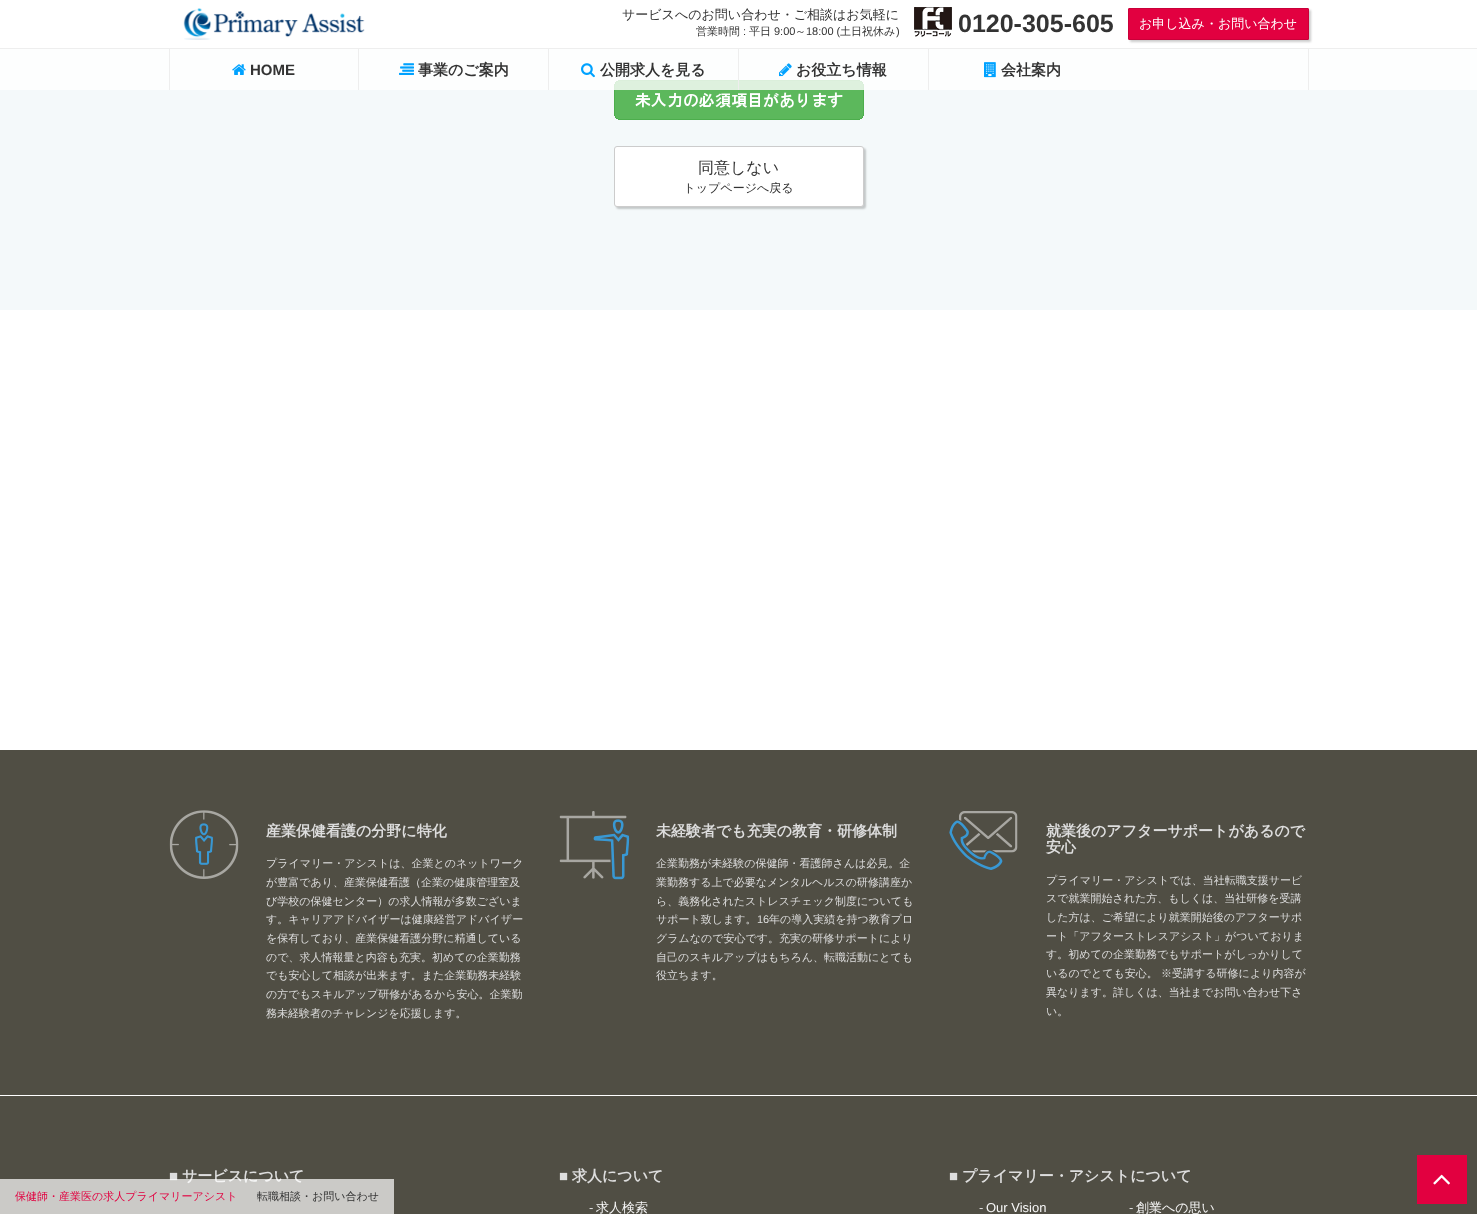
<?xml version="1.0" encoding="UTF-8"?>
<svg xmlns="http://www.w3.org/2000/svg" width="1477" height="1214">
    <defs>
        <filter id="blur1" x="-50%" y="-200%" width="200%" height="500%"><feGaussianBlur stdDeviation="1"/></filter>
    </defs>
    <rect width="100%" height="100%" fill="#FFFFFF"/>
    <rect x="0" y="48" width="1477" height="1" fill="#EEEEEE"/>
    <image x="183" y="8" width="182" height="32" href="img_01.png"/>
    <text x="622" y="19" font-family="WenQuanYi Zen Hei" font-size="13" font-weight="500" fill="#333333">サービスへのお問い合わせ・ご相談はお気軽に</text>
    <text x="696" y="35" font-family="WenQuanYi Zen Hei" font-size="11" font-weight="500" fill="#333333">営業時間</text>
    <text x="743" y="35" font-family="Liberation Sans" font-size="11" fill="#333333">:</text>
    <text x="749" y="35" font-family="WenQuanYi Zen Hei" font-size="11" font-weight="500" fill="#333333">平日</text>
    <text x="774" y="35" font-family="Liberation Sans" font-size="11" fill="#333333">9:00</text>
    <text x="795" y="35" font-family="WenQuanYi Zen Hei" font-size="11" font-weight="500" fill="#333333">～</text>
    <text x="806" y="35" font-family="Liberation Sans" font-size="11" fill="#333333">18:00 (</text>
    <text x="840" y="35" font-family="WenQuanYi Zen Hei" font-size="11" font-weight="500" fill="#333333">土日祝休み</text>
    <text x="896" y="35" font-family="Liberation Sans" font-size="11" fill="#333333">)</text>
    <image x="914" y="7" width="38" height="30" href="img_02.png"/>
    <text x="958" y="32" font-family="Liberation Sans" font-size="25" font-weight="700" fill="#333333">0120-305-605</text>
    <rect x="1130" y="10" width="181" height="32" rx="1" fill="#000000" fill-opacity="0.2" filter="url(#blur1)"/>
    <rect x="1128.5" y="8.5" width="180" height="31" rx="0.5" fill="#E20040" stroke="#C90039"/>
    <text x="1139" y="28" font-family="WenQuanYi Zen Hei" font-size="13" font-weight="500" fill="#FFFFFF">お申し込み・お問い合わせ</text>
    <image x="0" y="49" width="1477" height="261" href="img_08.png"/>
    <rect x="0" y="49" width="1477" height="41" fill="#FFFFFF" fill-opacity="0.8"/>
    <rect x="1308" y="49" width="1" height="41" fill="#EEEEEE"/>
    <rect x="169" y="49" width="1" height="41" fill="#EEEEEE"/>
    <image x="232" y="64" width="14" height="11" href="img_03.png"/>
    <text x="250" y="75" font-family="Liberation Sans" font-size="15" font-weight="700" fill="#333333">HOME</text>
    <rect x="358" y="49" width="1" height="41" fill="#EEEEEE"/>
    <image x="399" y="63" width="15" height="12" href="img_04.png"/>
    <text x="418" y="75" font-family="WenQuanYi Zen Hei" font-size="15" font-weight="700" fill="#333333">事業のご案内</text>
    <rect x="548" y="49" width="1" height="41" fill="#EEEEEE"/>
    <image x="581" y="63" width="14" height="15" href="img_05.png"/>
    <text x="600" y="75" font-family="WenQuanYi Zen Hei" font-size="15" font-weight="700" fill="#333333">公開求人を見る</text>
    <rect x="738" y="49" width="1" height="41" fill="#EEEEEE"/>
    <image x="779" y="63" width="13" height="14" href="img_06.png"/>
    <text x="796" y="75" font-family="WenQuanYi Zen Hei" font-size="15" font-weight="700" fill="#333333">お役立ち情報</text>
    <rect x="928" y="49" width="1" height="41" fill="#EEEEEE"/>
    <image x="984" y="62" width="12" height="16" href="img_07.png"/>
    <text x="1001" y="75" font-family="WenQuanYi Zen Hei" font-size="15" font-weight="700" fill="#333333">会社案内</text>
    <rect x="0" y="750" width="1477" height="464" fill="#504E44"/>
    <image x="169" y="810" width="70" height="69" href="img_09.png"/>
    <text x="266" y="836" font-family="WenQuanYi Zen Hei" font-size="15" font-weight="700" fill="#DDDDDD">産業保健看護の分野に特化</text>
    <text font-family="WenQuanYi Zen Hei" font-size="11" font-weight="500" fill="#DDDDDD">
        <tspan x="266" y="867">プライマリー・アシストは、企業とのネットワーク</tspan>
        <tspan x="266" y="886">が豊富であり、産業保健看護（企業の健康管理室及</tspan>
        <tspan x="266" y="905">び学校の保健センター）の求人情報が多数ございま</tspan>
        <tspan x="266" y="923">す。キャリアアドバイザーは健康経営アドバイザー</tspan>
        <tspan x="266" y="942">を保有しており、産業保健看護分野に精通している</tspan>
        <tspan x="266" y="961">ので、求人情報量と内容も充実。初めての企業勤務</tspan>
        <tspan x="266" y="979">でも安心して相談が出来ます。また企業勤務未経験</tspan>
        <tspan x="266" y="998">の方でもスキルアップ研修があるから安心。企業勤</tspan>
        <tspan x="266" y="1017">務未経験者のチャレンジを応援します。</tspan>
    </text>
    <image x="559" y="811" width="71" height="69" href="img_10.png"/>
    <text x="656" y="836" font-family="WenQuanYi Zen Hei" font-size="15" font-weight="700" fill="#DDDDDD">未経験者でも充実の教育・研修体制</text>
    <text font-family="WenQuanYi Zen Hei" font-size="11" font-weight="500" fill="#DDDDDD">
        <tspan x="656" y="867">企業勤務が未経験の保健師・看護師さんは必見。企</tspan>
        <tspan x="656" y="886">業勤務する上で必要なメンタルヘルスの研修講座か</tspan>
        <tspan x="656" y="905">ら、義務化されたストレスチェック制度についても</tspan>
        <tspan x="656" y="923">サポート致します。</tspan>
    </text>
    <text x="757" y="923" font-family="Liberation Sans" font-size="11" fill="#DDDDDD">16</text>
    <text x="769" y="923" font-family="WenQuanYi Zen Hei" font-size="11" font-weight="500" fill="#DDDDDD">年の導入実績を持つ教育プロ</text>
    <text font-family="WenQuanYi Zen Hei" font-size="11" font-weight="500" fill="#DDDDDD">
        <tspan x="656" y="942">グラムなので安心です。充実の研修サポートにより</tspan>
        <tspan x="656" y="961">自己のスキルアップはもちろん、転職活動にとても</tspan>
        <tspan x="656" y="979">役立ちます。</tspan>
    </text>
    <image x="949" y="811" width="69" height="59" href="img_11.png"/>
    <text font-family="WenQuanYi Zen Hei" font-size="15" font-weight="700" fill="#DDDDDD">
        <tspan x="1046" y="836">就業後のアフターサポートがあるので</tspan>
        <tspan x="1046" y="852">安心</tspan>
    </text>
    <text font-family="WenQuanYi Zen Hei" font-size="11" font-weight="500" fill="#DDDDDD">
        <tspan x="1046" y="884">プライマリー・アシストでは、当社転職支援サービ</tspan>
        <tspan x="1046" y="902">スで就業開始された方、もしくは、当社研修を受講</tspan>
        <tspan x="1046" y="921">した方は、ご希望により就業開始後のアフターサポ</tspan>
        <tspan x="1046" y="940">ート「アフターストレスアシスト」がついておりま</tspan>
        <tspan x="1046" y="958">す。初めての企業勤務でもサポートがしっかりして</tspan>
        <tspan x="1046" y="977">いるのでとても安心。 ※受講する研修により内容が</tspan>
        <tspan x="1046" y="996">異なります。詳しくは、当社までお問い合わせ下さ</tspan>
        <tspan x="1046" y="1015">い。</tspan>
    </text>
    <rect x="0" y="1095" width="1477" height="1" fill="#FFFFFF"/>
    <text x="169" y="1181" font-family="Liberation Sans" font-size="15" font-weight="700" fill="#DDDDDD">■</text>
    <text x="182" y="1181" font-family="WenQuanYi Zen Hei" font-size="15" font-weight="700" fill="#DDDDDD">サービスについて</text>
    <text x="559" y="1181" font-family="Liberation Sans" font-size="15" font-weight="700" fill="#DDDDDD">■</text>
    <text x="572" y="1181" font-family="WenQuanYi Zen Hei" font-size="15" font-weight="700" fill="#DDDDDD">求人について</text>
    <text x="589" y="1212" font-family="Liberation Sans" font-size="13" fill="#DDDDDD">-</text>
    <text x="596" y="1212" font-family="WenQuanYi Zen Hei" font-size="13" font-weight="500" fill="#F7F7F7">求人検索</text>
    <text x="949" y="1181" font-family="Liberation Sans" font-size="15" font-weight="700" fill="#DDDDDD">■</text>
    <text x="962" y="1181" font-family="WenQuanYi Zen Hei" font-size="15" font-weight="700" fill="#DDDDDD">プライマリー・アシストについて</text>
    <text x="979" y="1212" font-family="Liberation Sans" font-size="13" fill="#DDDDDD">-</text>
    <text x="986" y="1212" font-family="Liberation Sans" font-size="13" fill="#F7F7F7">Our Vision</text>
    <text x="1129" y="1212" font-family="Liberation Sans" font-size="13" fill="#DDDDDD">-</text>
    <text x="1136" y="1212" font-family="WenQuanYi Zen Hei" font-size="13" font-weight="500" fill="#F7F7F7">創業への思い</text>
    <rect x="1417" y="1155" width="50" height="49" fill="#E20040"/>
    <image x="1433" y="1174" width="17" height="11" href="img_12.png"/>
    <rect x="0" y="1179" width="394" height="35" fill="#FFFFFF" fill-opacity="0.7"/>
    <text x="15" y="1200" font-family="WenQuanYi Zen Hei" font-size="11" font-weight="500" fill="#E20040">保健師・産業医の求人プライマリーアシスト</text>
    <text x="257" y="1200" font-family="WenQuanYi Zen Hei" font-size="11" font-weight="500" fill="#333333">転職相談・お問い合わせ</text>
</svg>
